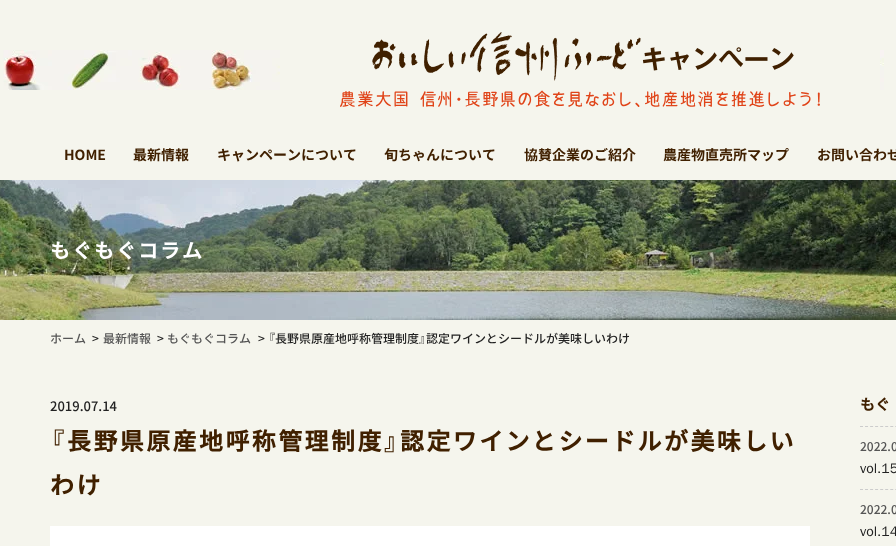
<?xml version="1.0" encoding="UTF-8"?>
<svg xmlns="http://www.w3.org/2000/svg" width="896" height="546">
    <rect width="100%" height="100%" fill="#F5F5ED"/>
    <image x="3" y="50" width="881" height="40" href="img_01.png"/>
    <rect x="280" y="50" width="600" height="40" fill="#F5F5ED"/>
    <image x="340" y="32" width="480" height="75" href="img_02.png"/>
    <text x="64" y="160" font-family="'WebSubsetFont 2'" font-size="14" font-weight="700" fill="#402000">HOME</text>
    <text x="133" y="160" font-family="'WebSubsetFont 2'" font-size="14" font-weight="700" fill="#402000">最新情報</text>
    <text x="217" y="160" font-family="'WebSubsetFont 2'" font-size="14" font-weight="700" fill="#402000">キャンペーンについて</text>
    <text x="384" y="160" font-family="'WebSubsetFont 2'" font-size="14" font-weight="700" fill="#402000">旬ちゃんについて</text>
    <text x="524" y="160" font-family="'WebSubsetFont 2'" font-size="14" font-weight="700" fill="#402000">協賛企業のご紹介</text>
    <text x="663" y="160" font-family="'WebSubsetFont 2'" font-size="14" font-weight="700" fill="#402000">農産物直売所マップ</text>
    <text x="817" y="160" font-family="'WebSubsetFont 2'" font-size="14" font-weight="700" fill="#402000">お問い合わせ</text>
    <image x="0" y="180" width="896" height="140" href="img_03.png"/>
    <text x="50" y="258" font-family="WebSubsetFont" font-size="20" font-weight="700" letter-spacing="2" fill="#FFFFFF">もぐもぐコラム</text>
    <text x="50" y="343" font-family="WebSubsetFont" font-size="12" font-weight="500" fill="#555555">ホーム</text>
    <text x="92" y="343" font-family="WebSubsetFont" font-size="12" font-weight="500" letter-spacing="-3" fill="#222222">&gt;</text>
    <text x="103" y="343" font-family="WebSubsetFont" font-size="12" font-weight="500" fill="#555555">最新情報</text>
    <text x="157" y="343" font-family="WebSubsetFont" font-size="12" font-weight="500" letter-spacing="-3" fill="#222222">&gt;</text>
    <text x="167" y="343" font-family="WebSubsetFont" font-size="12" font-weight="500" fill="#555555">もぐもぐコラム</text>
    <text x="258" y="343" font-family="WebSubsetFont" font-size="12" font-weight="500" letter-spacing="-3" fill="#222222">&gt;</text>
    <text x="268" y="343" font-family="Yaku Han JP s" font-size="12" fill="#222222">『</text>
    <text x="275" y="343" font-family="WebSubsetFont" font-size="12" font-weight="500" fill="#222222">長野県原産地呼称管理制度</text>
    <text x="419" y="343" font-family="Yaku Han JP s" font-size="12" fill="#222222">』</text>
    <text x="426" y="343" font-family="WebSubsetFont" font-size="12" font-weight="500" fill="#222222">認定ワインとシードルが美味しいわけ</text>
    <text x="50" y="411" font-family="WebSubsetFont" font-size="13" font-weight="500" fill="#222222">2019.07.14</text>
    <text x="50" y="450" font-family="Yaku Han JP s" font-size="24" font-weight="700" letter-spacing="2.4" fill="#402000">『</text>
    <text x="67" y="450" font-family="WebSubsetFont" font-size="24" font-weight="700" letter-spacing="2.4" fill="#402000">長野県原産地呼称管理制度</text>
    <text x="384" y="450" font-family="Yaku Han JP s" font-size="24" font-weight="700" letter-spacing="2.4" fill="#402000">』</text>
    <text x="400" y="450" font-family="WebSubsetFont" font-size="24" font-weight="700" letter-spacing="2.4" fill="#402000">認定ワインとシードルが美味しい</text>
    <text x="50" y="494" font-family="WebSubsetFont" font-size="24" font-weight="700" letter-spacing="2.4" fill="#402000">わけ</text>
    <rect x="50" y="526" width="760" height="20" fill="#FFFFFF"/>
    <text x="860" y="410" font-family="WebSubsetFont" font-size="15" font-weight="700" fill="#402000">もぐ</text>
    <path d="M 860 426.5 H 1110" fill="none" stroke="#CCCCCC" stroke-dasharray="3 2.04"/>
    <text x="860" y="451" font-family="WebSubsetFont" font-size="12" font-weight="500" fill="#555555">2022.0</text>
    <text x="860" y="473" font-family="WenQuanYi Zen Hei" font-size="14" font-weight="500" fill="#222222">vol.15</text>
    <path d="M 860 489.5 H 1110" fill="none" stroke="#CCCCCC" stroke-dasharray="3 2.04"/>
    <text x="860" y="514" font-family="WebSubsetFont" font-size="12" font-weight="500" fill="#555555">2022.0</text>
    <text x="860" y="536" font-family="WenQuanYi Zen Hei" font-size="14" font-weight="500" fill="#222222">vol.14</text>
</svg>
